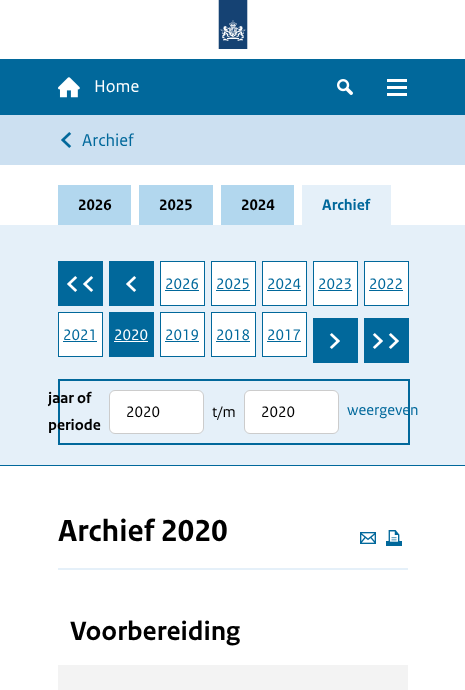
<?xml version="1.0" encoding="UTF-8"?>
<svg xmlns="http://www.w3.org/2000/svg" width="465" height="690">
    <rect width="100%" height="100%" fill="#FFFFFF"/>
    <image x="218" y="0" width="30" height="49" href="img_01.png"/>
    <rect x="0" y="59" width="465" height="56" fill="#01689B"/>
    <image x="58" y="77" width="22" height="21" href="img_02.png"/>
    <text x="94" y="92" font-family="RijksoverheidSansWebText" font-size="18" fill="#FFFFFF">Home</text>
    <image x="337" y="79" width="16" height="16" href="img_03.png"/>
    <rect x="387" y="79" width="20" height="3" fill="#FFFFFF"/>
    <rect x="387" y="86" width="20" height="3" fill="#FFFFFF"/>
    <rect x="387" y="93" width="20" height="3" fill="#FFFFFF"/>
    <rect x="0" y="115" width="465" height="50" fill="#CCE0F1"/>
    <image x="61" y="132" width="11" height="16" href="img_04.png"/>
    <text x="82" y="146" font-family="RijksoverheidSansWebText" font-size="18" fill="#01689B">Archief</text>
    <rect x="0" y="225" width="465" height="240" fill="#E5F0F9"/>
    <rect x="0" y="465" width="465" height="1" fill="#01689B"/>
    <rect x="58" y="185" width="73" height="40" fill="#B2D7EE"/>
    <text x="78" y="210" font-family="RijksoverheidSansWebText" font-size="16" font-weight="700" fill="#000000">2026</text>
    <rect x="139" y="185" width="74" height="40" fill="#B2D7EE"/>
    <text x="159" y="210" font-family="RijksoverheidSansWebText" font-size="16" font-weight="700" fill="#000000">2025</text>
    <rect x="221" y="185" width="73" height="40" fill="#B2D7EE"/>
    <text x="241" y="210" font-family="RijksoverheidSansWebText" font-size="16" font-weight="700" fill="#000000">2024</text>
    <rect x="302" y="185" width="89" height="40" fill="#E5F0F9"/>
    <text x="322" y="210" font-family="RijksoverheidSansWebText" font-size="16" font-weight="700" fill="#01689B">Archief</text>
    <rect x="58" y="261" width="45" height="45" fill="#01689B"/>
    <image x="67" y="276" width="11" height="16" href="img_05.png"/>
    <image x="83" y="276" width="11" height="16" href="img_05.png"/>
    <rect x="109" y="261" width="45" height="45" fill="#01689B"/>
    <image x="126" y="276" width="11" height="16" href="img_05.png"/>
    <rect x="160.5" y="261.5" width="44" height="44" fill="#FFFFFF" stroke="#01689B"/>
    <text x="165" y="289" font-family="RijksoverheidSansWebText" font-size="16" fill="#01689B">2026</text>
    <rect x="165" y="290" width="34" height="1" fill="#01689B"/>
    <rect x="211.5" y="261.5" width="44" height="44" fill="#FFFFFF" stroke="#01689B"/>
    <text x="216" y="289" font-family="RijksoverheidSansWebText" font-size="16" fill="#01689B">2025</text>
    <rect x="216" y="290" width="34" height="1" fill="#01689B"/>
    <rect x="262.5" y="261.5" width="44" height="44" fill="#FFFFFF" stroke="#01689B"/>
    <text x="267" y="289" font-family="RijksoverheidSansWebText" font-size="16" fill="#01689B">2024</text>
    <rect x="267" y="290" width="34" height="1" fill="#01689B"/>
    <rect x="313.5" y="261.5" width="44" height="44" fill="#FFFFFF" stroke="#01689B"/>
    <text x="318" y="289" font-family="RijksoverheidSansWebText" font-size="16" fill="#01689B">2023</text>
    <rect x="318" y="290" width="34" height="1" fill="#01689B"/>
    <rect x="364.5" y="261.5" width="44" height="44" fill="#FFFFFF" stroke="#01689B"/>
    <text x="369" y="289" font-family="RijksoverheidSansWebText" font-size="16" fill="#01689B">2022</text>
    <rect x="369" y="290" width="34" height="1" fill="#01689B"/>
    <rect x="58.5" y="312.5" width="44" height="44" fill="#FFFFFF" stroke="#01689B"/>
    <text x="63" y="340" font-family="RijksoverheidSansWebText" font-size="16" fill="#01689B">2021</text>
    <rect x="63" y="341" width="34" height="1" fill="#01689B"/>
    <rect x="109" y="312" width="45" height="45" fill="#01689B"/>
    <text x="114" y="340" font-family="RijksoverheidSansWebText" font-size="16" fill="#FFFFFF">2020</text>
    <rect x="114" y="341" width="34" height="1" fill="#FFFFFF"/>
    <rect x="160.5" y="312.5" width="44" height="44" fill="#FFFFFF" stroke="#01689B"/>
    <text x="165" y="340" font-family="RijksoverheidSansWebText" font-size="16" fill="#01689B">2019</text>
    <rect x="165" y="341" width="34" height="1" fill="#01689B"/>
    <rect x="211.5" y="312.5" width="44" height="44" fill="#FFFFFF" stroke="#01689B"/>
    <text x="216" y="340" font-family="RijksoverheidSansWebText" font-size="16" fill="#01689B">2018</text>
    <rect x="216" y="341" width="34" height="1" fill="#01689B"/>
    <rect x="262.5" y="312.5" width="44" height="44" fill="#FFFFFF" stroke="#01689B"/>
    <text x="267" y="340" font-family="RijksoverheidSansWebText" font-size="16" fill="#01689B">2017</text>
    <rect x="267" y="341" width="34" height="1" fill="#01689B"/>
    <rect x="313" y="318" width="45" height="45" fill="#01689B"/>
    <image x="329" y="333" width="11" height="16" href="img_06.png"/>
    <rect x="364" y="318" width="45" height="45" fill="#01689B"/>
    <image x="372" y="333" width="11" height="16" href="img_06.png"/>
    <image x="388" y="333" width="11" height="16" href="img_06.png"/>
    <rect x="59" y="380" width="350" height="64" fill="none" stroke="#01689B" stroke-width="2"/>
    <text font-family="RijksoverheidSansWebText" font-size="16" font-weight="700" fill="#000000">
        <tspan x="48" y="403">jaar of</tspan>
        <tspan x="48" y="430">periode</tspan>
    </text>
    <rect x="109.5" y="390.5" width="94" height="43" rx="5.5" fill="#FFFFFF" stroke="#CCCCCC"/>
    <text x="126" y="417" font-family="RijksoverheidSansWebText" font-size="16" fill="#000000">2020</text>
    <text x="212" y="417" font-family="RijksoverheidSansWebText" font-size="16" fill="#000000">t/m</text>
    <rect x="244.5" y="390.5" width="94" height="43" rx="5.5" fill="#FFFFFF" stroke="#CCCCCC"/>
    <text x="261" y="417" font-family="RijksoverheidSansWebText" font-size="16" fill="#000000">2020</text>
    <text x="347" y="415" font-family="RijksoverheidSansWebText" font-size="16" fill="#01689B">weergeven</text>
    <text x="58" y="541" font-family="RijksoverheidSansWebText" font-size="32" font-weight="700" fill="#000000">Archief 2020</text>
    <image x="360" y="532" width="16" height="12" href="img_07.png"/>
    <image x="386" y="530" width="16" height="16" href="img_08.png"/>
    <rect x="58" y="568" width="350" height="2" fill="#E5F0F9"/>
    <text x="70" y="640" font-family="RijksoverheidSansWebText" font-size="28" font-weight="700" fill="#000000">Voorbereiding</text>
    <rect x="58" y="665" width="350" height="25" fill="#F3F3F3"/>
</svg>
